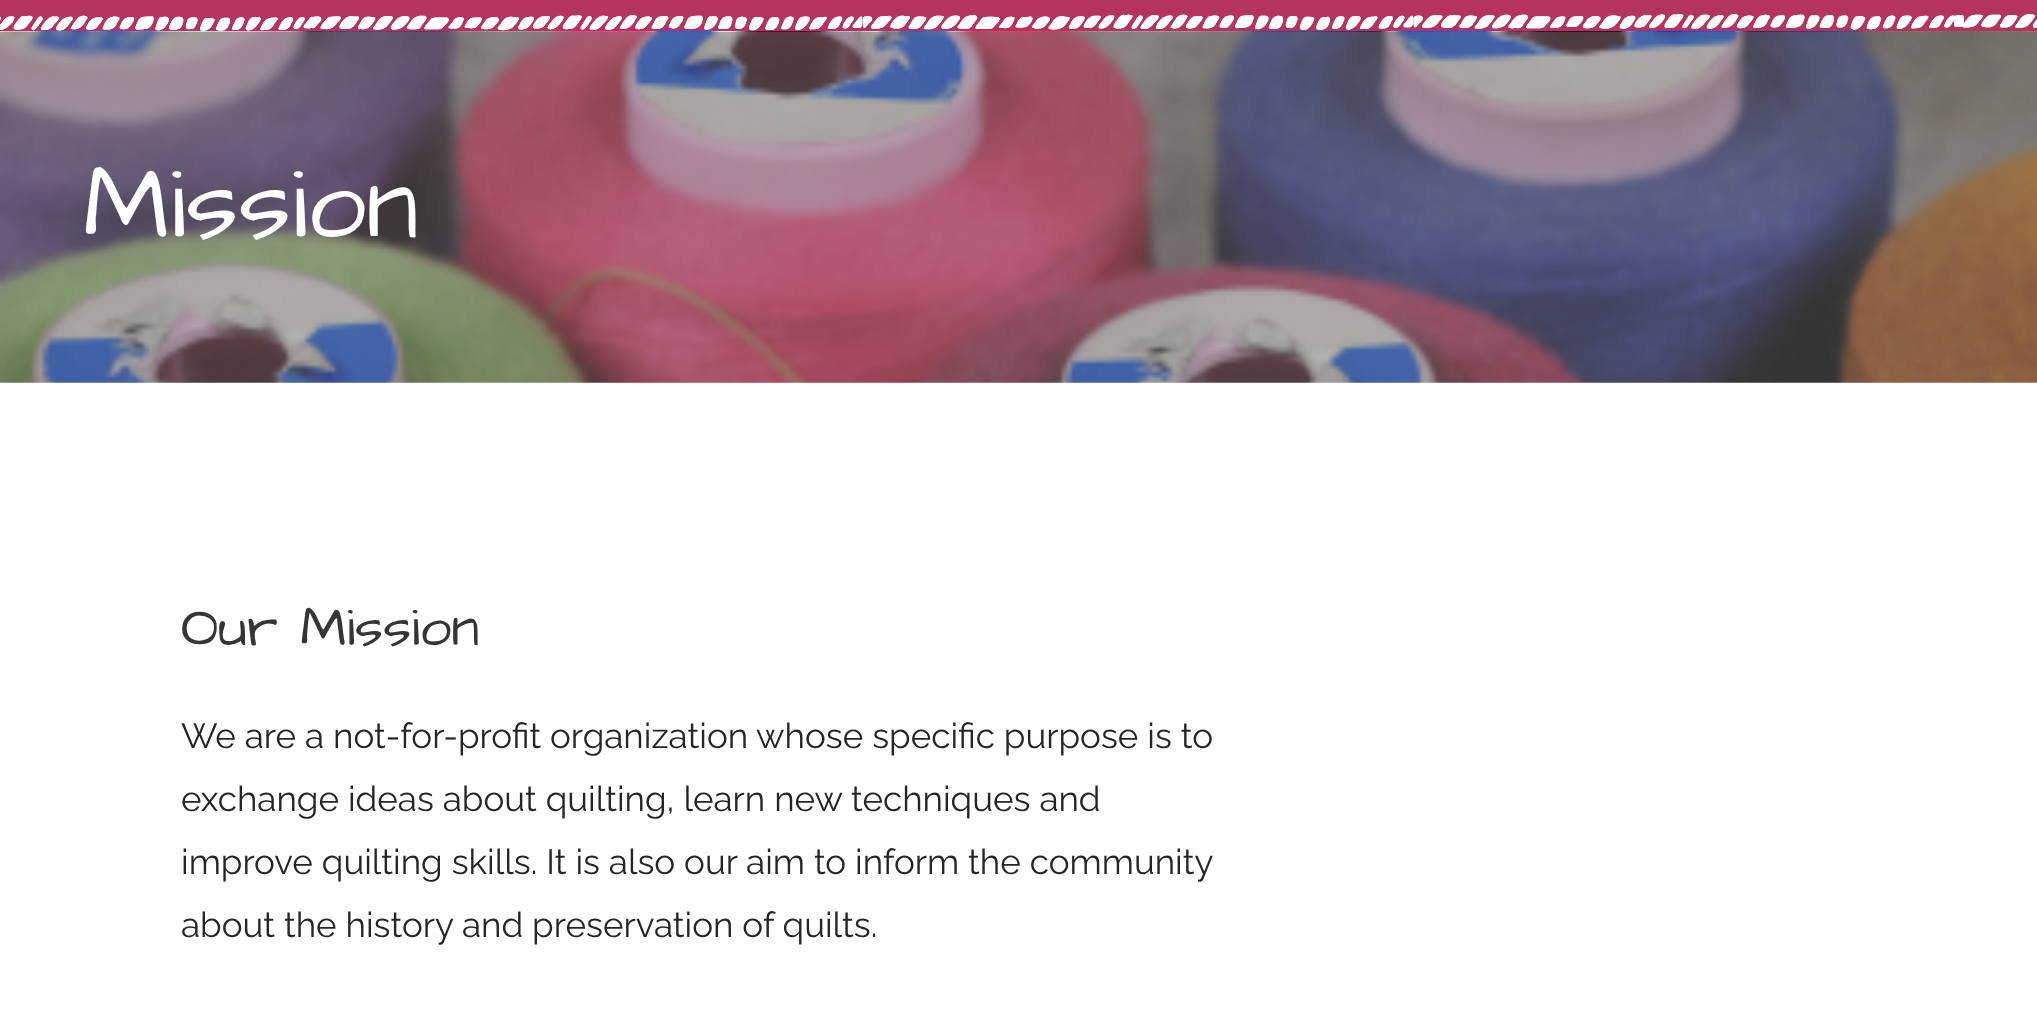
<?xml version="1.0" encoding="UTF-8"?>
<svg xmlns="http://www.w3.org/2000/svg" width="2037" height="1034">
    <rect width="100%" height="100%" fill="#FFFFFF"/>
    <rect x="0" y="0" width="2037" height="31" fill="#B5345F"/>
    <image x="0" y="14" width="2037" height="17" href="img_01.png"/>
    <image x="0" y="31" width="2037" height="352" href="img_02.png"/>
    <text x="83" y="237" font-family="Architects Daughter" font-size="105" fill="#FFFFFF">Mission</text>
    <text x="181" y="645" font-family="Architects Daughter" font-size="56" fill="#353535">Our Mission</text>
    <text font-family="Raleway" font-size="35" fill="#252525">
        <tspan x="181" y="748">We are a not-for-profit organization whose specific purpose is to</tspan>
        <tspan x="181" y="811">exchange ideas about quilting, learn new techniques and</tspan>
        <tspan x="181" y="874">improve quilting skills. It is also our aim to inform the community</tspan>
        <tspan x="181" y="937">about the history and preservation of quilts.</tspan>
    </text>
</svg>
